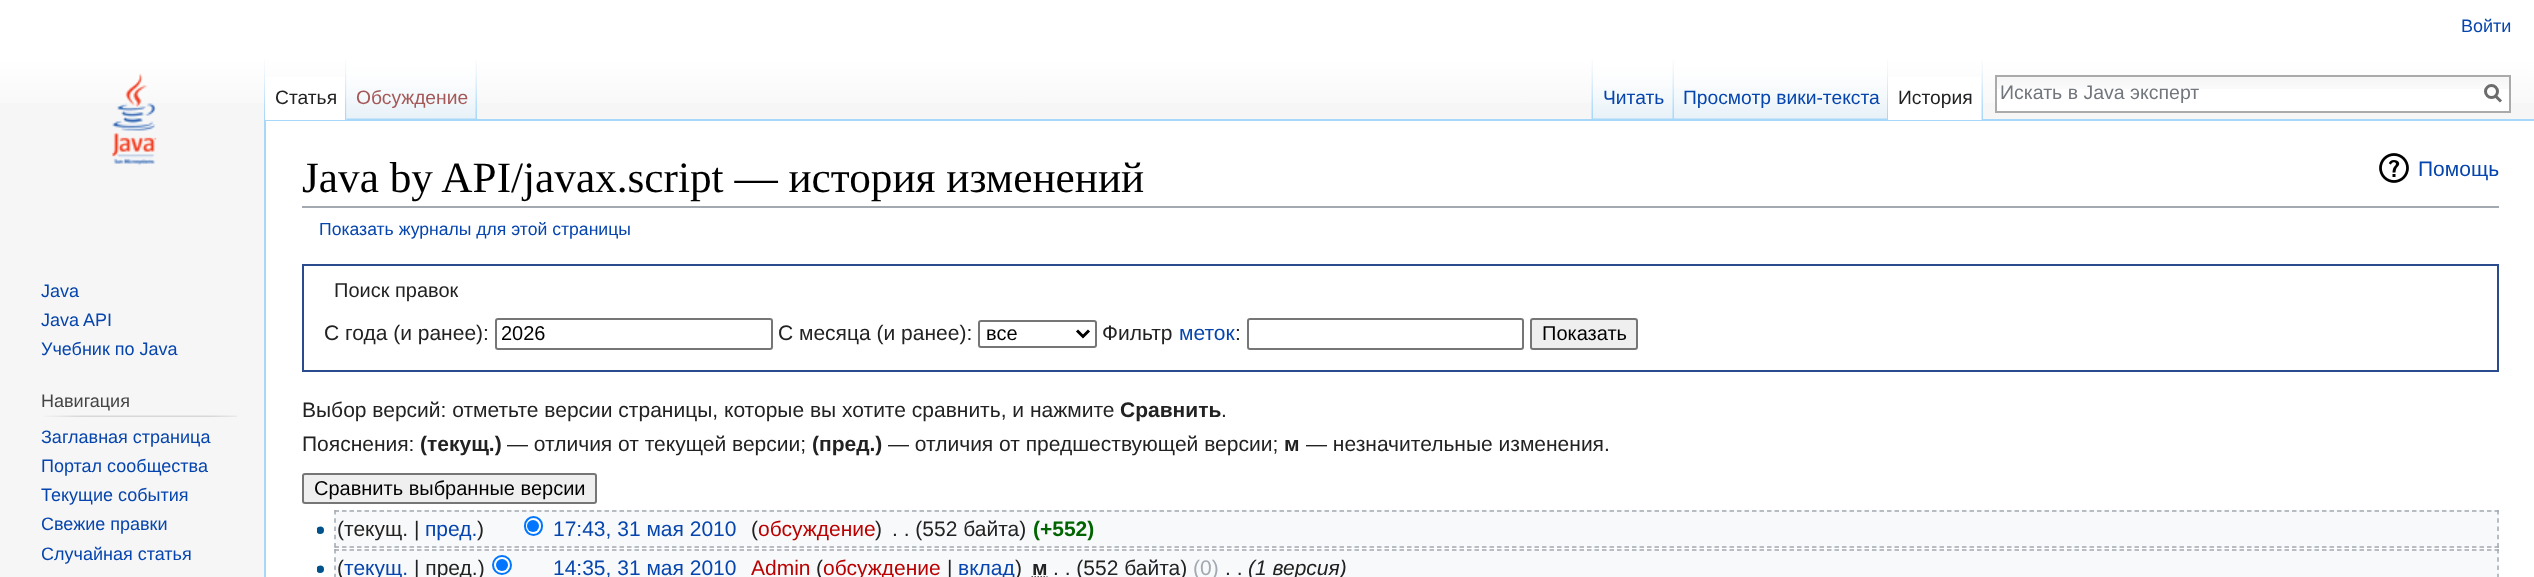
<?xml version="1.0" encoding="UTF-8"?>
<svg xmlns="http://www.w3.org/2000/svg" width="2534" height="577">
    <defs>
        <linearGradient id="g1" gradientUnits="userSpaceOnUse" x1="1268" y1="0" x2="1268" y2="120"><stop offset="0.5" stop-color="#FFFFFF"/><stop offset="1" stop-color="#F6F6F6"/></linearGradient>
    </defs>
    <rect width="100%" height="100%" fill="#F6F6F6"/>
    <rect x="0" y="0" width="2534" height="103" fill="url(#g1)"/>
    <text x="2461" y="32" font-family="Liberation Sans" font-size="18" fill="#0645AD">Войти</text>
    <image x="264" y="60" width="1" height="59" href="img_01.png"/>
    <rect x="264" y="119" width="2270" height="2" fill="#A7D7F9"/>
    <rect x="264" y="119" width="2" height="458" fill="#A7D7F9"/>
    <rect x="265" y="77" width="82" height="43" fill="#FFFFFF"/>
    <image x="345" y="60" width="2" height="60" href="img_02.png"/>
    <text x="275" y="104" font-family="Liberation Sans" font-size="19.25" fill="#222222">Статья</text>
    <image x="346" y="60" width="131" height="60" href="img_03.png"/>
    <image x="475" y="60" width="2" height="59" href="img_04.png"/>
    <text x="356" y="104" font-family="Liberation Sans" font-size="19.25" fill="#A55858">Обсуждение</text>
    <image x="1591" y="60" width="2" height="59" href="img_05.png"/>
    <image x="1593" y="60" width="81" height="60" href="img_06.png"/>
    <image x="1672" y="60" width="2" height="59" href="img_04.png"/>
    <text x="1603" y="104" font-family="Liberation Sans" font-size="19.25" fill="#0645AD">Читать</text>
    <image x="1674" y="60" width="213" height="60" href="img_07.png"/>
    <image x="1887" y="60" width="1" height="60" href="img_08.png"/>
    <text x="1683" y="104" font-family="Liberation Sans" font-size="19.25" fill="#0645AD">Просмотр вики-текста</text>
    <rect x="1888" y="77" width="94" height="43" fill="#FFFFFF"/>
    <image x="1981" y="60" width="2" height="60" href="img_09.png"/>
    <text x="1898" y="104" font-family="Liberation Sans" font-size="19.25" fill="#222222">История</text>
    <rect x="1997" y="89" width="512" height="22" fill="#FFFFFF"/>
    <image x="1997" y="77" width="512" height="12" href="img_10.png"/>
    <rect x="1996" y="76" width="514" height="36" fill="none" stroke="#AAAAAA" stroke-width="2"/>
    <text x="2000" y="99" font-family="Liberation Sans" font-size="19.5" fill="#72777D">Искать в Java эксперт</text>
    <path d="M 2501 101.5 L 2495 95.5" fill="none" stroke="#6C6C6C" stroke-width="3"/>
    <circle cx="2491.5" cy="91.5" r="6" fill="none" stroke="#6C6C6C" stroke-width="3"/>
    <image x="111" y="73" width="46" height="93" href="img_11.png"/>
    <text font-family="Liberation Sans" font-size="18" fill="#0645AD">
        <tspan x="41" y="297">Java</tspan>
        <tspan x="41" y="326">Java API</tspan>
        <tspan x="41" y="355">Учебник по Java</tspan>
    </text>
    <text x="41" y="407" font-family="Liberation Sans" font-size="18" fill="#444444">Навигация</text>
    <image x="44" y="415" width="193" height="2" href="img_12.png"/>
    <text font-family="Liberation Sans" font-size="18" fill="#0645AD">
        <tspan x="41" y="443">Заглавная страница</tspan>
        <tspan x="41" y="472">Портал сообщества</tspan>
        <tspan x="41" y="501">Текущие события</tspan>
        <tspan x="41" y="530">Свежие правки</tspan>
        <tspan x="41" y="560">Случайная статья</tspan>
    </text>
    <rect x="266" y="121" width="2268" height="456" fill="#FFFFFF"/>
    <rect x="302" y="206" width="2197" height="2" fill="#A2A9B1"/>
    <text x="302" y="192" font-family="Liberation Serif" font-size="43.25" fill="#000000">Java by API/javax.script — история изменений</text>
    <image x="2379" y="153" width="30" height="30" href="img_13.png"/>
    <text x="2418" y="176" font-family="Liberation Sans" font-size="21" fill="#0645AD">Помощь</text>
    <text x="319" y="235" font-family="Liberation Sans" font-size="17.6" fill="#0645AD">Показать журналы для этой страницы</text>
    <rect x="303" y="265" width="2195" height="106" fill="none" stroke="#2A4B8D" stroke-width="2"/>
    <text x="334" y="297" font-family="Liberation Sans" font-size="20" fill="#222222">Поиск правок</text>
    <text x="324" y="340" font-family="Liberation Sans" font-size="21" fill="#222222">С года (и ранее):</text>
    <rect x="496" y="319" width="276" height="30" rx="2" fill="none" stroke="#767676" stroke-width="2"/>
    <text x="501" y="340" font-family="Liberation Sans" font-size="20" fill="#000000">2026</text>
    <text x="778" y="340" font-family="Liberation Sans" font-size="21" fill="#222222">С месяца (и ранее):</text>
    <rect x="979" y="321" width="117" height="26" rx="2" fill="none" stroke="#767676" stroke-width="2"/>
    <path d="M 1077 330.5 L 1083 336.5 L 1089 330.5" fill="none" stroke="#000000" stroke-width="3"/>
    <text x="986" y="340" font-family="Liberation Sans" font-size="20" fill="#000000">все</text>
    <text x="1102" y="340" font-family="Liberation Sans" font-size="21" fill="#222222">Фильтр</text>
    <text x="1179" y="340" font-family="Liberation Sans" font-size="21" fill="#0645AD">меток</text>
    <text x="1235" y="340" font-family="Liberation Sans" font-size="21" fill="#222222">:</text>
    <rect x="1248" y="319" width="275" height="30" rx="2" fill="none" stroke="#767676" stroke-width="2"/>
    <rect x="1531" y="319" width="106" height="30" rx="2" fill="#EFEFEF" stroke="#767676" stroke-width="2"/>
    <text x="1542" y="340" font-family="Liberation Sans" font-size="20" fill="#000000">Показать</text>
    <text x="302" y="417" font-family="Liberation Sans" font-size="21" fill="#222222">Выбор версий: отметьте версии страницы, которые вы хотите сравнить, и нажмите</text>
    <text x="1120" y="417" font-family="Liberation Sans" font-size="21" font-weight="700" fill="#222222">Сравнить</text>
    <text x="1221" y="417" font-family="Liberation Sans" font-size="21" fill="#222222">.</text>
    <text x="302" y="451" font-family="Liberation Sans" font-size="21" fill="#222222">Пояснения:</text>
    <text x="420" y="451" font-family="Liberation Sans" font-size="21" font-weight="700" fill="#222222">(текущ.)</text>
    <text x="507" y="451" font-family="Liberation Sans" font-size="21" fill="#222222">— отличия от текущей версии;</text>
    <text x="812" y="451" font-family="Liberation Sans" font-size="21" font-weight="700" fill="#222222">(пред.)</text>
    <text x="888" y="451" font-family="Liberation Sans" font-size="21" fill="#222222">— отличия от предшествующей версии;</text>
    <text x="1284" y="451" font-family="Liberation Sans" font-size="21" font-weight="700" fill="#222222">м</text>
    <text x="1306" y="451" font-family="Liberation Sans" font-size="21" fill="#222222">— незначительные изменения.</text>
    <rect x="303" y="474" width="293" height="29" rx="2" fill="#EFEFEF" stroke="#767676" stroke-width="2"/>
    <text x="314" y="495" font-family="Liberation Sans" font-size="20" fill="#000000">Сравнить выбранные версии</text>
    <rect x="335" y="510" width="2164" height="38" fill="#F8F9FA"/>
    <path d="M 334.5 511 H 2499" fill="none" stroke="#A2A9B1" stroke-width="1.5" stroke-dasharray="4.5 3"/>
    <path d="M 2498 510 V 547.5" fill="none" stroke="#A2A9B1" stroke-width="1.5" stroke-dasharray="4.5 3.75"/>
    <path d="M 334.5 547 H 2499" fill="none" stroke="#A2A9B1" stroke-width="1.5" stroke-dasharray="4.5 3"/>
    <path d="M 335 510 V 547.5" fill="none" stroke="#A2A9B1" stroke-width="1.5" stroke-dasharray="4.5 3.75"/>
    <image x="317" y="526" width="7" height="8" href="img_14.png"/>
    <text x="337" y="536" font-family="Liberation Sans" font-size="21" fill="#222222">(текущ. |</text>
    <text x="425" y="536" font-family="Liberation Sans" font-size="21" fill="#0645AD">пред.</text>
    <text x="477" y="536" font-family="Liberation Sans" font-size="21" fill="#222222">)</text>
    <rect x="525" y="517" width="17" height="18" rx="8.5" fill="#FFFFFF" stroke="#0075FF" stroke-width="2"/>
    <circle cx="533" cy="526" r="6" fill="#0075FF"/>
    <text x="553" y="536" font-family="Liberation Sans" font-size="21" fill="#0645AD">17:43, 31 мая 2010</text>
    <text x="751" y="536" font-family="Liberation Sans" font-size="21" fill="#222222">(</text>
    <text x="758" y="536" font-family="Liberation Sans" font-size="21" fill="#BA0000">обсуждение</text>
    <text x="875" y="536" font-family="Liberation Sans" font-size="21" fill="#222222">)</text>
    <text x="892" y="536" font-family="Liberation Sans" font-size="21" fill="#222222">. . (552 байта)</text>
    <text x="1033" y="536" font-family="Liberation Sans" font-size="21" font-weight="700" fill="#006400">(+552)</text>
    <rect x="335" y="549" width="2164" height="28" fill="#F8F9FA"/>
    <path d="M 334.5 550 H 2499" fill="none" stroke="#A2A9B1" stroke-width="1.5" stroke-dasharray="4.5 3"/>
    <path d="M 2498 549 V 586.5" fill="none" stroke="#A2A9B1" stroke-width="1.5" stroke-dasharray="4.5 3.75"/>
    <path d="M 335 549 V 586.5" fill="none" stroke="#A2A9B1" stroke-width="1.5" stroke-dasharray="4.5 3.75"/>
    <image x="317" y="565" width="7" height="8" href="img_14.png"/>
    <text x="337" y="575" font-family="Liberation Sans" font-size="21" fill="#222222">(</text>
    <text x="344" y="575" font-family="Liberation Sans" font-size="21" fill="#0645AD">текущ.</text>
    <text x="414" y="575" font-family="Liberation Sans" font-size="21" fill="#222222">| пред.)</text>
    <circle cx="502" cy="565" r="9" fill="#FFFFFF" stroke="#0075FF" stroke-width="2"/>
    <circle cx="502" cy="565" r="6" fill="#0075FF"/>
    <text x="553" y="575" font-family="Liberation Sans" font-size="21" fill="#0645AD">14:35, 31 мая 2010</text>
    <text x="751" y="575" font-family="Liberation Sans" font-size="21" fill="#BA0000">Admin</text>
    <text x="816" y="575" font-family="Liberation Sans" font-size="21" fill="#222222">(</text>
    <text x="823" y="575" font-family="Liberation Sans" font-size="21" fill="#BA0000">обсуждение</text>
    <text x="947" y="575" font-family="Liberation Sans" font-size="21" fill="#222222">|</text>
    <text x="958" y="575" font-family="Liberation Sans" font-size="21" fill="#0645AD">вклад</text>
    <text x="1015" y="575" font-family="Liberation Sans" font-size="21" fill="#222222">)</text>
    <text x="1032" y="575" font-family="Liberation Sans" font-size="21" font-weight="700" fill="#222222">м</text>
    <path d="M 1031.5 577 H 1047.5" fill="none" stroke="#222222" stroke-width="1.5" stroke-dasharray="1.5 1.5"/>
    <text x="1053" y="575" font-family="Liberation Sans" font-size="21" fill="#222222">. . (552 байта)</text>
    <text x="1193" y="575" font-family="Liberation Sans" font-size="21" fill="#A2A9B1">(0)</text>
    <text x="1225" y="575" font-family="Liberation Sans" font-size="21" fill="#222222">. .</text>
    <text x="1248" y="575" font-family="Liberation Sans" font-size="21" font-style="italic" fill="#222222">(1 версия)</text>
</svg>
